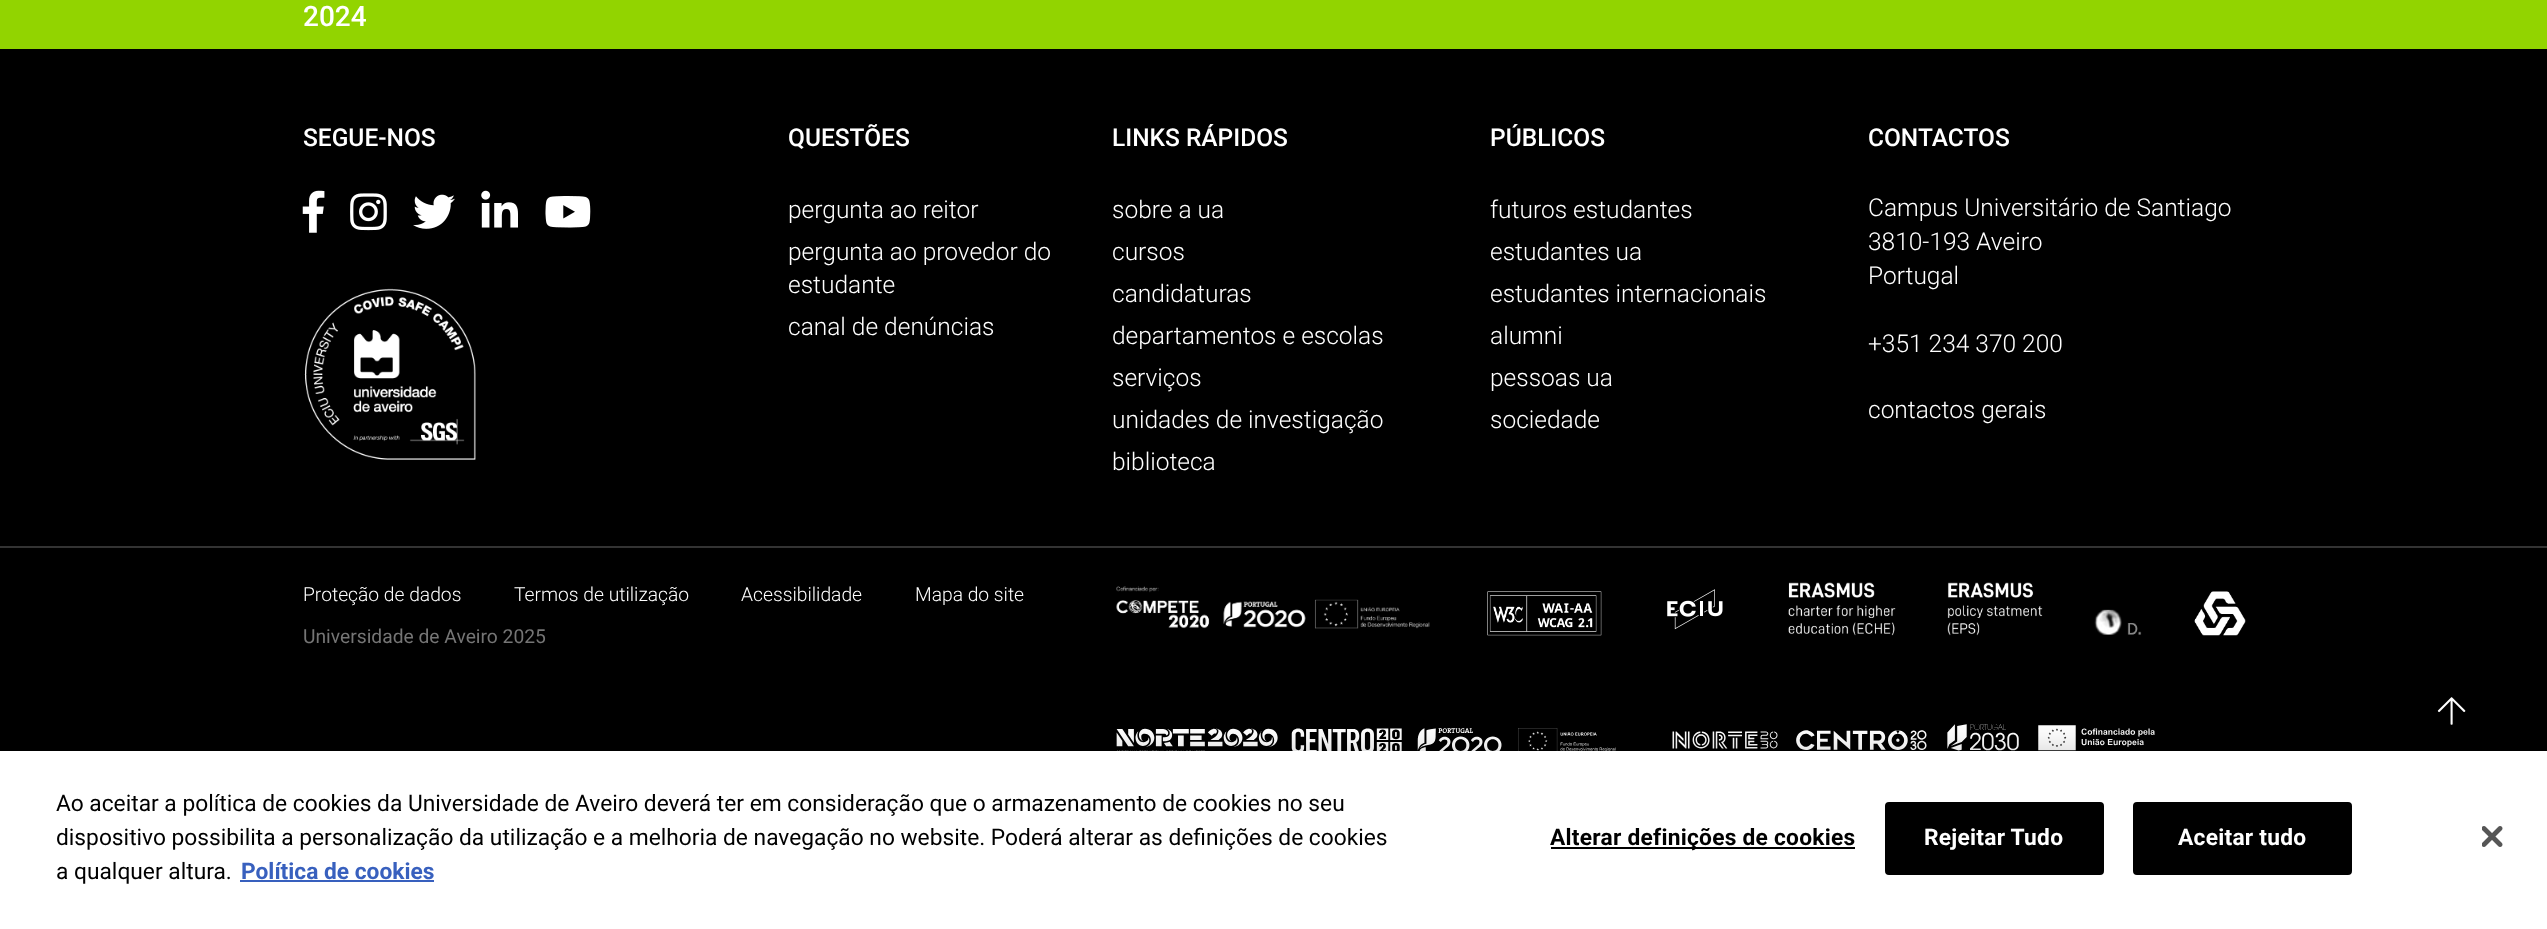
<?xml version="1.0" encoding="UTF-8"?>
<svg xmlns="http://www.w3.org/2000/svg" width="2547" height="929">
    <defs>
        <filter id="blur1" x="-50%" y="-200%" width="200%" height="500%"><feGaussianBlur stdDeviation="16"/></filter>
    </defs>
    <rect width="100%" height="100%" fill="#000000"/>
    <rect x="0" y="0" width="2547" height="49" fill="#92D400"/>
    <text x="303" y="26" font-family="Roboto" font-size="28" font-weight="500" fill="#FFFFFF">2024</text>
    <text x="303" y="146" font-family="Roboto" font-size="24.5" font-weight="500" fill="#FFFFFF">SEGUE-NOS</text>
    <image x="302" y="190" width="23" height="43" href="img_01.png"/>
    <image x="350" y="193" width="37" height="38" href="img_02.png"/>
    <image x="413" y="194" width="42" height="35" href="img_03.png"/>
    <image x="481" y="190" width="37" height="38" href="img_04.png"/>
    <image x="545" y="196" width="46" height="32" href="img_05.png"/>
    <image x="304" y="288" width="172" height="172" href="img_06.png"/>
    <text x="788" y="146" font-family="Roboto" font-size="24.5" font-weight="500" fill="#FFFFFF">QUESTÕES</text>
    <text font-family="Roboto" font-size="24.5" font-weight="300" fill="#FFFFFF">
        <tspan x="788" y="218">pergunta ao reitor</tspan>
        <tspan x="788" y="260">pergunta ao provedor do</tspan>
        <tspan x="788" y="293">estudante</tspan>
        <tspan x="788" y="335">canal de denúncias</tspan>
    </text>
    <text x="1112" y="146" font-family="Roboto" font-size="24.5" font-weight="500" fill="#FFFFFF">LINKS RÁPIDOS</text>
    <text font-family="Roboto" font-size="24.5" font-weight="300" fill="#FFFFFF">
        <tspan x="1112" y="218">sobre a ua</tspan>
        <tspan x="1112" y="260">cursos</tspan>
        <tspan x="1112" y="302">candidaturas</tspan>
        <tspan x="1112" y="344">departamentos e escolas</tspan>
        <tspan x="1112" y="386">serviços</tspan>
        <tspan x="1112" y="428">unidades de investigação</tspan>
        <tspan x="1112" y="470">biblioteca</tspan>
    </text>
    <text x="1490" y="146" font-family="Roboto" font-size="24.5" font-weight="500" fill="#FFFFFF">PÚBLICOS</text>
    <text font-family="Roboto" font-size="24.5" font-weight="300" fill="#FFFFFF">
        <tspan x="1490" y="218">futuros estudantes</tspan>
        <tspan x="1490" y="260">estudantes ua</tspan>
        <tspan x="1490" y="302">estudantes internacionais</tspan>
        <tspan x="1490" y="344">alumni</tspan>
        <tspan x="1490" y="386">pessoas ua</tspan>
        <tspan x="1490" y="428">sociedade</tspan>
    </text>
    <text x="1868" y="146" font-family="Roboto" font-size="24.5" font-weight="500" fill="#FFFFFF">CONTACTOS</text>
    <text font-family="Roboto" font-size="24.5" font-weight="300" fill="#FFFFFF">
        <tspan x="1868" y="216">Campus Universitário de Santiago</tspan>
        <tspan x="1868" y="250">3810-193 Aveiro</tspan>
        <tspan x="1868" y="284">Portugal</tspan>
    </text>
    <text x="1868" y="352" font-family="Roboto" font-size="24.5" font-weight="300" fill="#FFFFFF">+351 234 370 200</text>
    <text x="1868" y="418" font-family="Roboto" font-size="24.5" font-weight="300" fill="#FFFFFF">contactos gerais</text>
    <rect x="0" y="546" width="2547" height="2" fill="#333333"/>
    <text x="303" y="601" font-family="Roboto" font-size="19.25" font-weight="300" fill="#FFFFFF">Proteção de dados</text>
    <text x="514" y="601" font-family="Roboto" font-size="19.25" font-weight="300" fill="#FFFFFF">Termos de utilização</text>
    <text x="741" y="601" font-family="Roboto" font-size="19.25" font-weight="300" fill="#FFFFFF">Acessibilidade</text>
    <text x="915" y="601" font-family="Roboto" font-size="19.25" font-weight="300" fill="#FFFFFF">Mapa do site</text>
    <text x="303" y="643" font-family="Roboto" font-size="19.25" fill="#757575">Universidade de Aveiro 2025</text>
    <image x="1116" y="586" width="314" height="43" href="img_07.png"/>
    <image x="1487" y="591" width="115" height="45" href="img_08.png"/>
    <image x="1667" y="589" width="56" height="41" href="img_09.png"/>
    <image x="1788" y="582" width="108" height="54" href="img_10.png"/>
    <image x="1947" y="582" width="96" height="54" href="img_11.png"/>
    <image x="2094" y="609" width="48" height="26" href="img_12.png"/>
    <image x="2194" y="591" width="52" height="45" href="img_13.png"/>
    <image x="1116" y="728" width="500" height="23" href="img_14.png"/>
    <image x="1672" y="724" width="483" height="27" href="img_15.png"/>
    <image x="2437" y="697" width="29" height="28" href="img_16.png"/>
    <rect x="0" y="751" width="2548" height="178" fill="#000000" fill-opacity="0.2" filter="url(#blur1)"/>
    <rect x="0" y="751" width="2547" height="178" fill="#FFFFFF"/>
    <text font-family="Roboto" font-size="22.75" fill="#000000">
        <tspan x="56" y="811">Ao aceitar a política de cookies da Universidade de Aveiro deverá ter em consideração que o armazenamento de cookies no seu</tspan>
        <tspan x="56" y="845">dispositivo possibilita a personalização da utilização e a melhoria de navegação no website. Poderá alterar as definições de cookies</tspan>
        <tspan x="56" y="879">a qualquer altura.</tspan>
    </text>
    <text x="241" y="879" font-family="Roboto" font-size="22.75" font-weight="700" fill="#3860BE">Política de cookies</text>
    <rect x="240" y="880" width="194" height="2" fill="#3860BE"/>
    <rect x="1551" y="847" width="304" height="2" fill="#000000"/>
    <text x="1550" y="845" font-family="Roboto" font-size="22.75" font-weight="700" letter-spacing="0.25" fill="#000000">Alterar definições de cookies</text>
    <rect x="1886" y="803" width="217" height="71" rx="3" fill="#000000" stroke="#000000" stroke-width="2"/>
    <text x="1924" y="845" font-family="Roboto" font-size="22.75" font-weight="700" letter-spacing="0.25" fill="#FFFFFF">Rejeitar Tudo</text>
    <rect x="2134" y="803" width="217" height="71" rx="3" fill="#000000" stroke="#000000" stroke-width="2"/>
    <text x="2178" y="845" font-family="Roboto" font-size="22.75" font-weight="700" letter-spacing="0.25" fill="#FFFFFF">Aceitar tudo</text>
    <image x="2482" y="826" width="21" height="21" href="img_17.png"/>
</svg>
